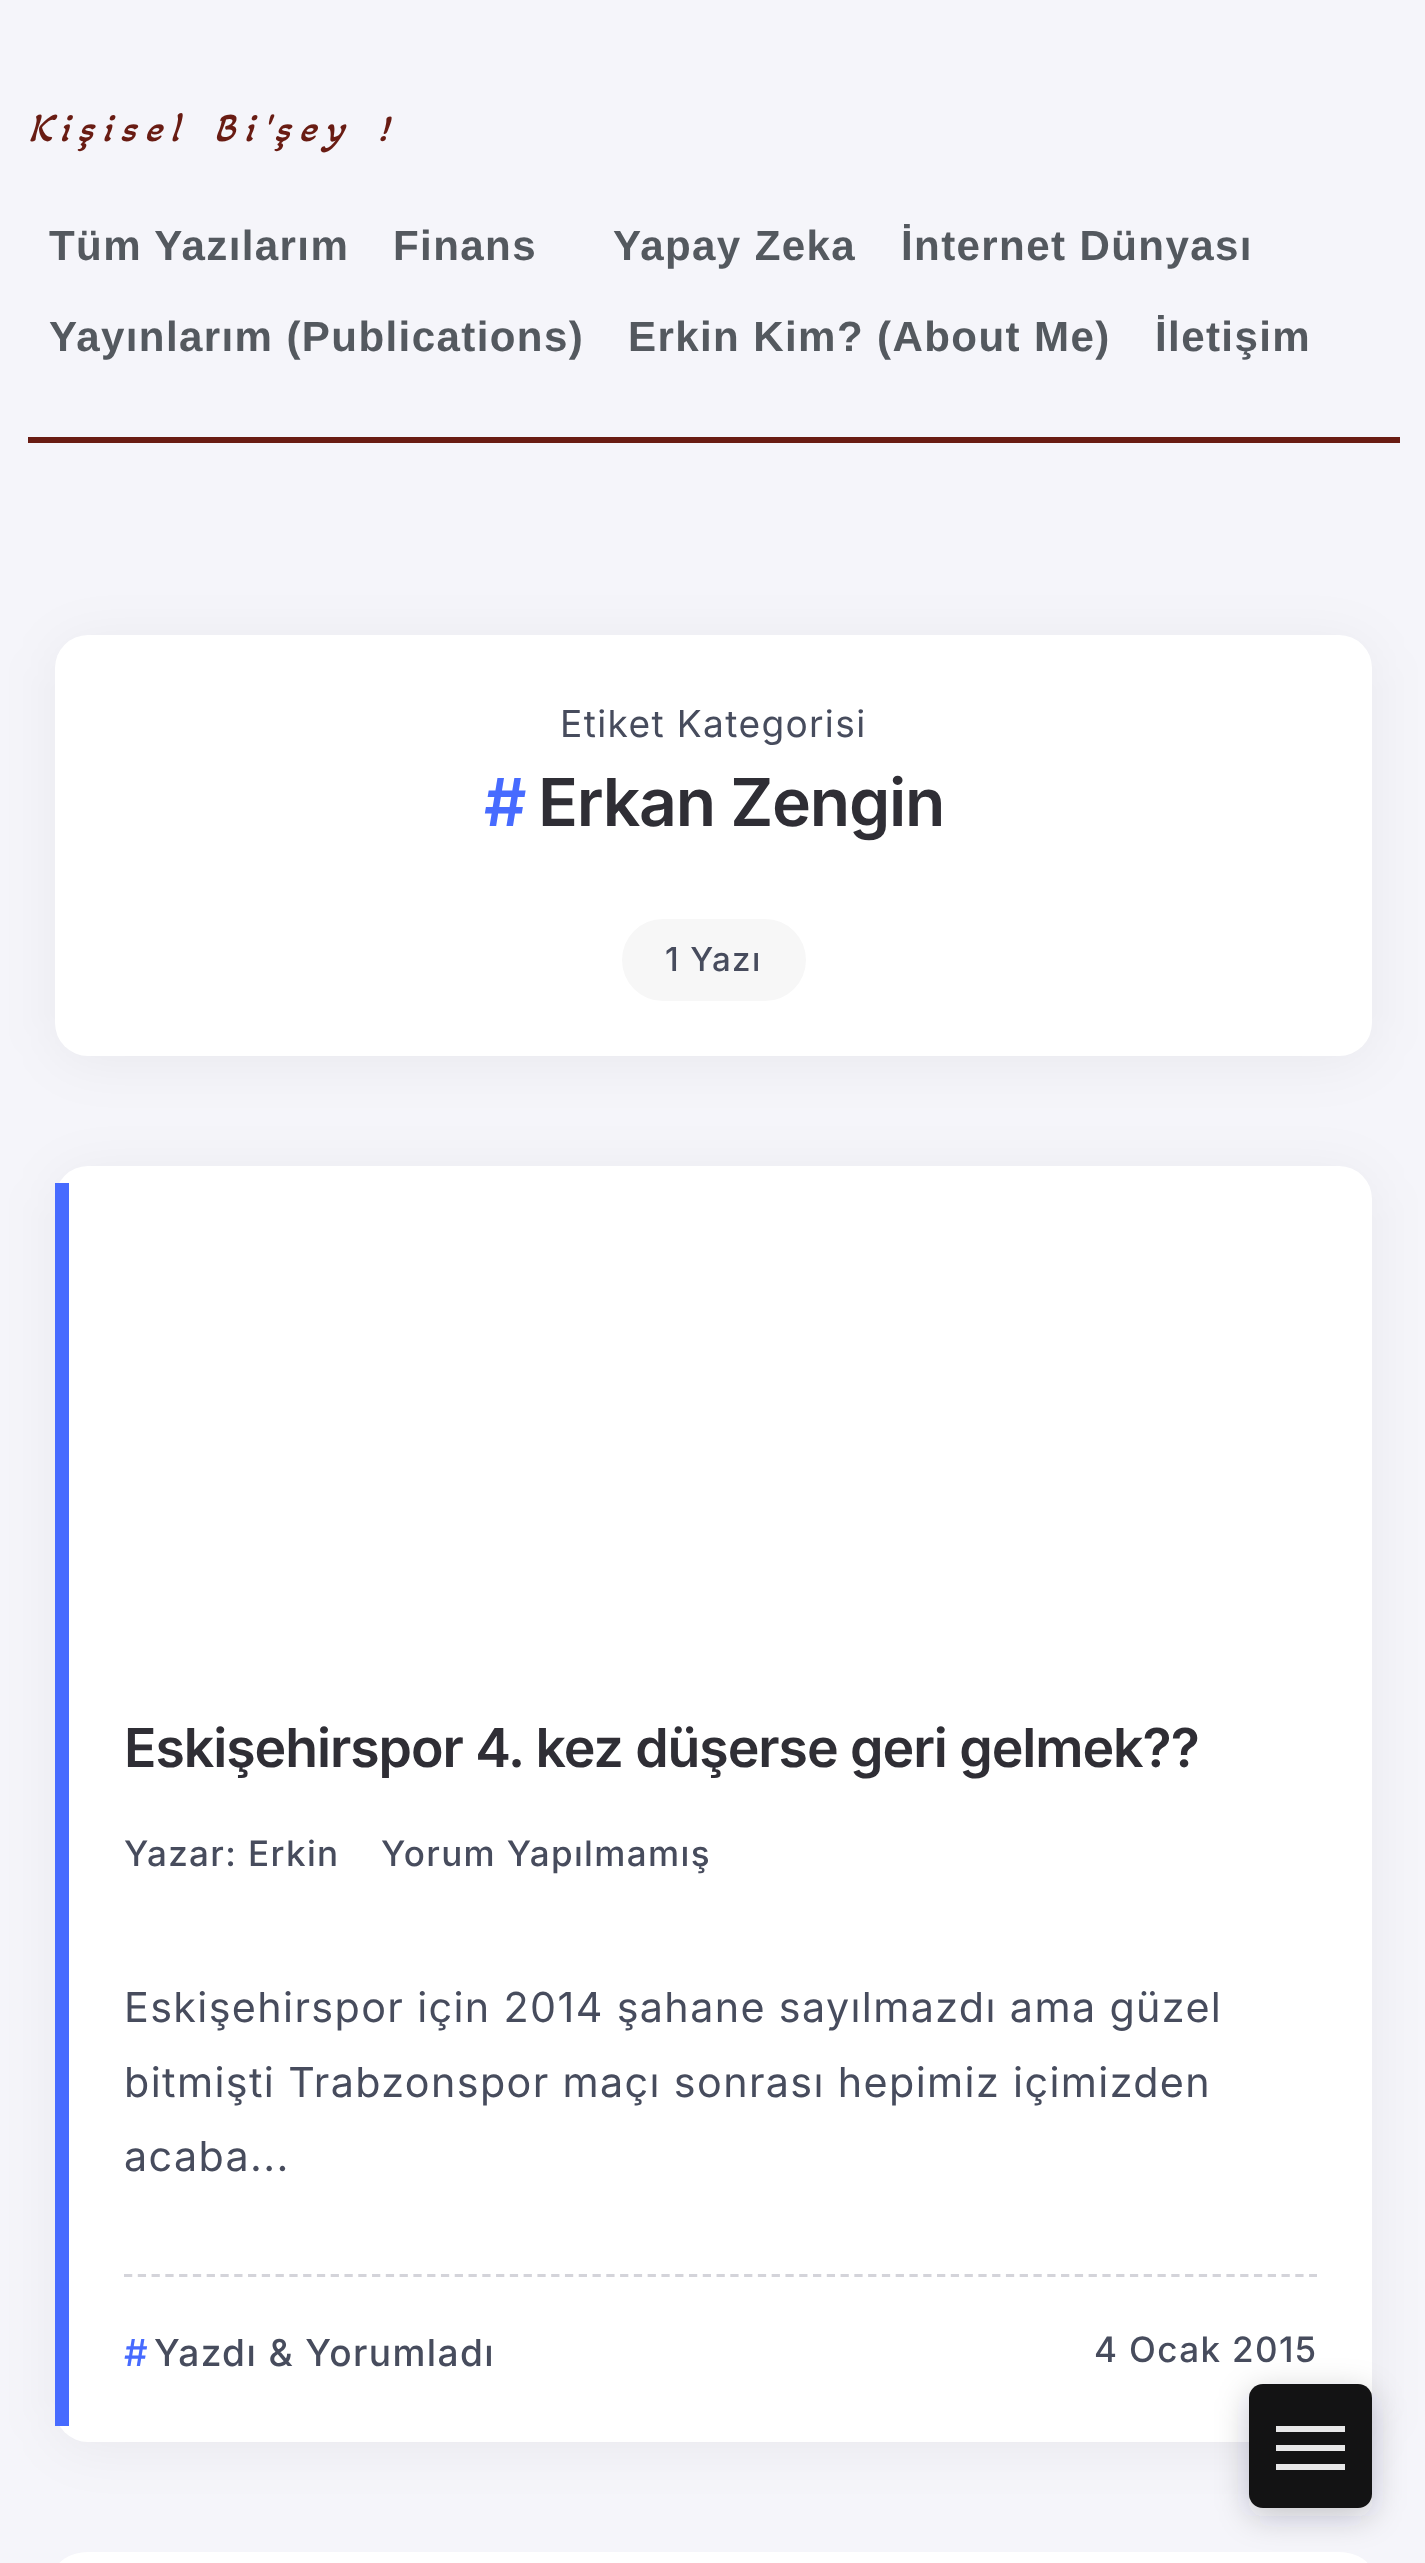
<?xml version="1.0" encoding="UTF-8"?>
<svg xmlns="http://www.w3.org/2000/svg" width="1425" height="2563">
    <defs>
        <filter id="blur1" x="-50%" y="-200%" width="200%" height="500%"><feGaussianBlur stdDeviation="27.5"/></filter>
        <filter id="blur2" x="-50%" y="-200%" width="200%" height="500%"><feGaussianBlur stdDeviation="16.5"/></filter>
    </defs>
    <rect width="100%" height="100%" fill="#F5F5FA"/>
    <text x="28" y="141" word-spacing="6" font-family="Akaya Telivigala" font-size="41.25" font-style="italic" letter-spacing="8" fill="#691C13">Kişisel Bi'şey !</text>
    <text x="49" y="260" font-family="Liberation Sans" font-size="42.1" font-weight="700" letter-spacing="1.38" fill="#54595F">Tüm Yazılarım</text>
    <text x="393" y="260" font-family="Liberation Sans" font-size="42.1" font-weight="700" letter-spacing="1.38" fill="#54595F">Finans</text>
    <text x="613" y="260" font-family="Liberation Sans" font-size="42.1" font-weight="700" letter-spacing="1.38" fill="#54595F">Yapay Zeka</text>
    <text x="901" y="260" font-family="Liberation Sans" font-size="42.1" font-weight="700" letter-spacing="1.38" fill="#54595F">İnternet Dünyası</text>
    <text x="49" y="351" font-family="Liberation Sans" font-size="42.1" font-weight="700" letter-spacing="1.38" fill="#54595F">Yayınlarım (Publications)</text>
    <text x="628" y="351" font-family="Liberation Sans" font-size="42.1" font-weight="700" letter-spacing="1.38" fill="#54595F">Erkin Kim? (About Me)</text>
    <text x="1155" y="351" font-family="Liberation Sans" font-size="42.1" font-weight="700" letter-spacing="1.38" fill="#54595F">İletişim</text>
    <rect x="28" y="437" width="1372" height="6" fill="#691C13"/>
    <rect x="55" y="641" width="1317" height="421" rx="33" fill="#0E0E13" fill-opacity="0.05" filter="url(#blur1)"/>
    <rect x="55" y="635" width="1317" height="421" rx="33" fill="#FFFFFF"/>
    <text x="560" y="737" font-family="Inter" font-size="37.1" letter-spacing="1.38" fill="#474C5D">Etiket Kategorisi</text>
    <text x="484" y="826" font-family="Inter" font-size="66" font-weight="600" letter-spacing="-1.25" fill="#476BFF">#</text>
    <text x="538" y="826" font-family="Inter" font-size="66" font-weight="600" letter-spacing="-1.25" fill="#2F2E35">Erkan Zengin</text>
    <rect x="622" y="919" width="184" height="82" rx="41" fill="#F7F7F7"/>
    <text x="665" y="971" font-family="Inter" font-size="33" font-weight="500" letter-spacing="1.38" fill="#474C5D">1 Yazı</text>
    <rect x="55" y="1172" width="1317" height="1276" rx="33" fill="#0E0E13" fill-opacity="0.05" filter="url(#blur1)"/>
    <rect x="55" y="1166" width="1317" height="1276" rx="33" fill="#FFFFFF"/>
    <rect x="55" y="1183" width="14" height="1243" fill="#476BFF"/>
    <text x="124" y="1767" font-family="Inter" font-size="53.6" font-weight="600" letter-spacing="-1.05" fill="#2F2E35">Eskişehirspor 4. kez düşerse geri gelmek??</text>
    <text x="124" y="1866" font-family="Inter" font-size="35" font-weight="500" letter-spacing="1.38" fill="#474C5D">Yazar: Erkin</text>
    <text x="381" y="1866" font-family="Inter" font-size="35" font-weight="500" letter-spacing="1.38" fill="#474C5D">Yorum Yapılmamış</text>
    <text font-family="Inter" font-size="41.25" letter-spacing="1.38" fill="#474C5D">
        <tspan x="124" y="2022">Eskişehirspor için 2014 şahane sayılmazdı ama güzel</tspan>
        <tspan x="124" y="2097">bitmişti Trabzonspor maçı sonrası hepimiz içimizden</tspan>
        <tspan x="124" y="2171">acaba...</tspan>
    </text>
    <path d="M 124 2275.5 H 1317" fill="none" stroke="#D4D4DA" stroke-width="2.8" stroke-dasharray="8.25 5.53"/>
    <text x="124" y="2366" font-family="Inter" font-size="37.1" font-weight="500" letter-spacing="1.38" fill="#476BFF">#</text>
    <text x="154" y="2366" font-family="Inter" font-size="37.1" font-weight="500" letter-spacing="1.38" fill="#474C5D">Yazdı &amp; Yorumladı</text>
    <text x="1094" y="2362" font-family="Inter" font-size="35" font-weight="500" letter-spacing="1.38" fill="#474C5D">4 Ocak 2015</text>
    <rect x="55" y="2552" width="1317" height="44" rx="33" fill="#FFFFFF"/>
    <rect x="1249" y="2393" width="123" height="123" rx="14" fill="#28292F" fill-opacity="0.24" filter="url(#blur2)"/>
    <rect x="1249" y="2384" width="123" height="124" rx="14" fill="#131314"/>
    <rect x="1276" y="2426" width="69" height="6" fill="#E7E7E8"/>
    <rect x="1276" y="2445" width="69" height="6" fill="#E7E7E8"/>
    <rect x="1276" y="2464" width="69" height="6" fill="#E7E7E8"/>
</svg>
